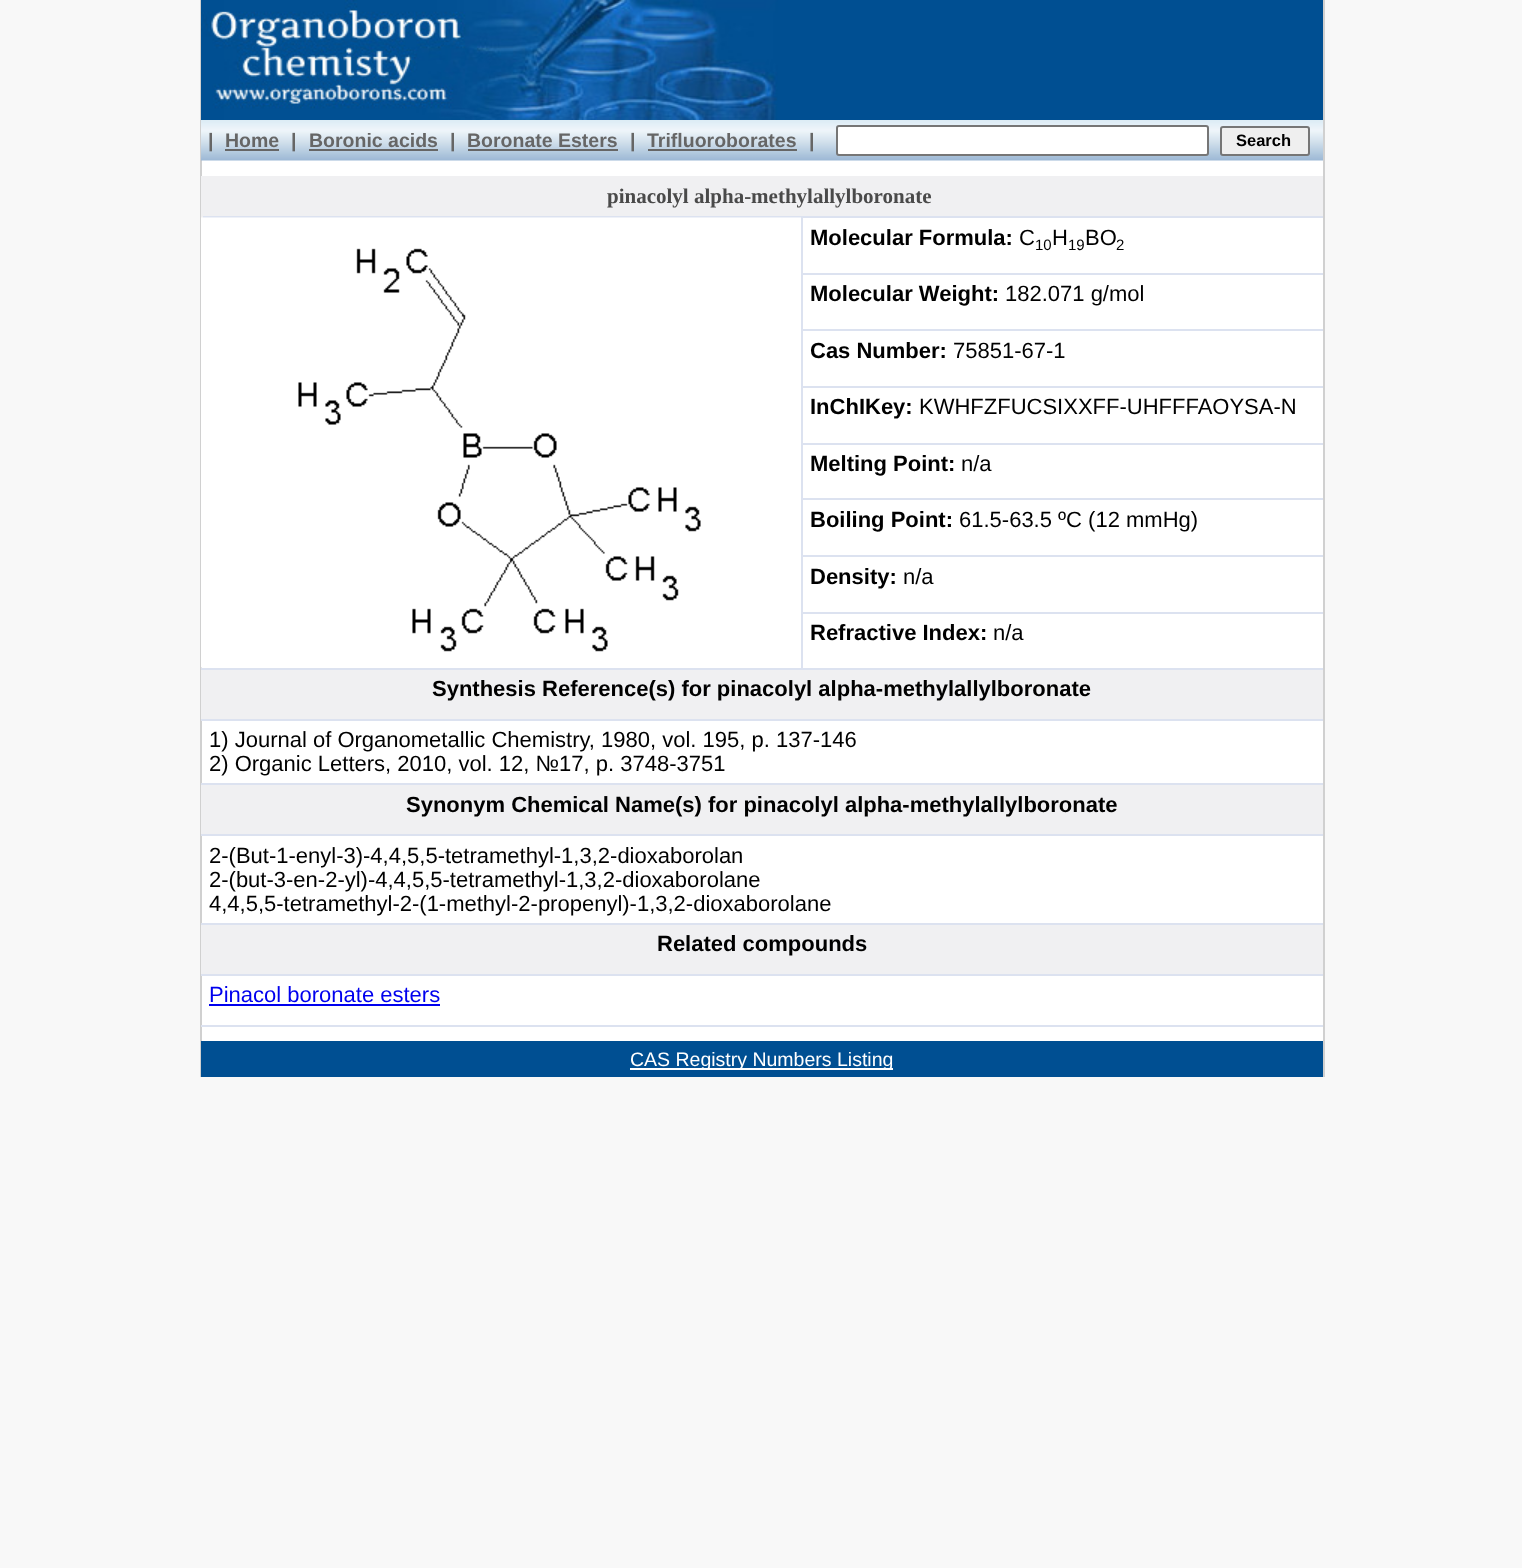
<?xml version="1.0" encoding="UTF-8"?>
<svg xmlns="http://www.w3.org/2000/svg" width="1522" height="1568">
    <rect width="100%" height="100%" fill="#F8F8F8"/>
    <rect x="202" y="160" width="1121" height="881" fill="#FFFFFF"/>
    <rect x="1323" y="0" width="2" height="1077" fill="#D0D0D0"/>
    <rect x="200" y="0" width="2" height="1077" fill="#D0D0D0"/>
    <image x="201" y="0" width="1122" height="120" href="img_01.png"/>
    <image x="201" y="120" width="1122" height="41" href="img_02.png"/>
    <text x="208" y="147" font-family="Liberation Sans" font-size="19.5" font-weight="700" fill="#666666">|</text>
    <text x="225" y="147" font-family="Liberation Sans" font-size="19.5" font-weight="700" fill="#666666">Home</text>
    <rect x="225" y="149" width="54" height="2" fill="#666666"/>
    <text x="291" y="147" font-family="Liberation Sans" font-size="19.5" font-weight="700" fill="#666666">|</text>
    <text x="309" y="147" font-family="Liberation Sans" font-size="19.5" font-weight="700" fill="#666666">Boronic acids</text>
    <rect x="309" y="149" width="129" height="2" fill="#666666"/>
    <text x="450" y="147" font-family="Liberation Sans" font-size="19.5" font-weight="700" fill="#666666">|</text>
    <text x="467" y="147" font-family="Liberation Sans" font-size="19.5" font-weight="700" fill="#666666">Boronate Esters</text>
    <rect x="468" y="149" width="150" height="2" fill="#666666"/>
    <text x="630" y="147" font-family="Liberation Sans" font-size="19.5" font-weight="700" fill="#666666">|</text>
    <text x="647" y="147" font-family="Liberation Sans" font-size="19.5" font-weight="700" fill="#666666">Trifluoroborates</text>
    <rect x="648" y="149" width="149" height="2" fill="#666666"/>
    <text x="809" y="147" font-family="Liberation Sans" font-size="19.5" font-weight="700" fill="#666666">|</text>
    <rect x="837" y="126" width="371" height="29" rx="2" fill="#FFFFFF" stroke="#767676" stroke-width="2"/>
    <rect x="1221" y="127" width="88" height="28" rx="2" fill="#EFEFEF" stroke="#767676" stroke-width="2"/>
    <text x="1236" y="146" font-family="Liberation Sans" font-size="16.5" font-weight="700" fill="#000000">Search</text>
    <rect x="201" y="1025" width="1122" height="2" fill="#DCE2F0"/>
    <rect x="203" y="178" width="1120" height="38" fill="#F0F0F2"/>
    <rect x="201" y="176" width="1122" height="2" fill="#F0F0F2"/>
    <rect x="801" y="216" width="522" height="2" fill="#DCE2F0"/>
    <rect x="801" y="273" width="522" height="2" fill="#DCE2F0"/>
    <rect x="801" y="329" width="522" height="2" fill="#DCE2F0"/>
    <rect x="801" y="386" width="522" height="2" fill="#DCE2F0"/>
    <rect x="801" y="443" width="522" height="2" fill="#DCE2F0"/>
    <rect x="801" y="498" width="522" height="2" fill="#DCE2F0"/>
    <rect x="801" y="555" width="522" height="2" fill="#DCE2F0"/>
    <rect x="801" y="612" width="522" height="2" fill="#DCE2F0"/>
    <rect x="201" y="668" width="1122" height="2" fill="#DCE2F0"/>
    <rect x="801" y="612" width="2" height="57" fill="#DCE2F0"/>
    <rect x="801" y="555" width="2" height="59" fill="#DCE2F0"/>
    <rect x="801" y="498" width="2" height="59" fill="#DCE2F0"/>
    <rect x="801" y="443" width="2" height="57" fill="#DCE2F0"/>
    <rect x="801" y="386" width="2" height="58" fill="#DCE2F0"/>
    <rect x="801" y="329" width="2" height="58" fill="#DCE2F0"/>
    <rect x="801" y="273" width="2" height="57" fill="#DCE2F0"/>
    <rect x="801" y="216" width="2" height="59" fill="#DCE2F0"/>
    <rect x="201" y="216" width="602" height="2" fill="#DCE2F0"/>
    <rect x="201" y="176" width="2" height="42" fill="#F0F0F2"/>
    <text x="607" y="203" font-family="Liberation Serif" font-size="21" font-weight="700" fill="#4A4A4A">pinacolyl alpha-methylallylboronate</text>
    <image x="201" y="217" width="600" height="451" href="img_03.png"/>
    <text x="810" y="245" font-family="Liberation Sans" font-size="22" font-weight="700" fill="#000000">Molecular Formula:</text>
    <text x="1019" y="245" font-family="Liberation Sans" font-size="22" fill="#000000">C</text>
    <text x="1035" y="250" font-family="Liberation Sans" font-size="15" fill="#000000">10</text>
    <text x="1052" y="245" font-family="Liberation Sans" font-size="22" fill="#000000">H</text>
    <text x="1068" y="250" font-family="Liberation Sans" font-size="15" fill="#000000">19</text>
    <text x="1085" y="245" font-family="Liberation Sans" font-size="22" fill="#000000">BO</text>
    <text x="1116" y="250" font-family="Liberation Sans" font-size="15" fill="#000000">2</text>
    <text x="810" y="301" font-family="Liberation Sans" font-size="22" font-weight="700" fill="#000000">Molecular Weight:</text>
    <text x="1005" y="301" font-family="Liberation Sans" font-size="22" fill="#000000">182.071 g/mol</text>
    <text x="810" y="358" font-family="Liberation Sans" font-size="22" font-weight="700" fill="#000000">Cas Number:</text>
    <text x="953" y="358" font-family="Liberation Sans" font-size="22" fill="#000000">75851-67-1</text>
    <text x="810" y="414" font-family="Liberation Sans" font-size="22" font-weight="700" fill="#000000">InChIKey:</text>
    <text x="919" y="414" font-family="Liberation Sans" font-size="22" fill="#000000">KWHFZFUCSIXXFF-UHFFFAOYSA-N</text>
    <text x="810" y="471" font-family="Liberation Sans" font-size="22" font-weight="700" fill="#000000">Melting Point:</text>
    <text x="961" y="471" font-family="Liberation Sans" font-size="22" fill="#000000">n/a</text>
    <text x="810" y="527" font-family="Liberation Sans" font-size="22" font-weight="700" fill="#000000">Boiling Point:</text>
    <text x="959" y="527" font-family="Liberation Sans" font-size="22" fill="#000000">61.5-63.5 ºC (12 mmHg)</text>
    <text x="810" y="584" font-family="Liberation Sans" font-size="22" font-weight="700" fill="#000000">Density:</text>
    <text x="903" y="584" font-family="Liberation Sans" font-size="22" fill="#000000">n/a</text>
    <text x="810" y="640" font-family="Liberation Sans" font-size="22" font-weight="700" fill="#000000">Refractive Index:</text>
    <text x="993" y="640" font-family="Liberation Sans" font-size="22" fill="#000000">n/a</text>
    <rect x="201" y="670" width="1122" height="49" fill="#F0F0F2"/>
    <text x="432" y="696" font-family="Liberation Sans" font-size="22" font-weight="700" fill="#000000">Synthesis Reference(s) for pinacolyl alpha-methylallylboronate</text>
    <rect x="201" y="719" width="1122" height="2" fill="#DCE2F0"/>
    <text font-family="Liberation Sans" font-size="22" fill="#000000">
        <tspan x="209" y="747">1) Journal of Organometallic Chemistry, 1980, vol. 195, p. 137-146</tspan>
        <tspan x="209" y="771">2) Organic Letters, 2010, vol. 12, №17, p. 3748-3751</tspan>
    </text>
    <rect x="201" y="785" width="1122" height="49" fill="#F0F0F2"/>
    <rect x="201" y="783" width="1122" height="2" fill="#DCE2F0"/>
    <text x="406" y="812" font-family="Liberation Sans" font-size="22" font-weight="700" fill="#000000">Synonym Chemical Name(s) for pinacolyl alpha-methylallylboronate</text>
    <rect x="201" y="834" width="1122" height="2" fill="#DCE2F0"/>
    <text font-family="Liberation Sans" font-size="22" fill="#000000">
        <tspan x="209" y="863">2-(But-1-enyl-3)-4,4,5,5-tetramethyl-1,3,2-dioxaborolan</tspan>
        <tspan x="209" y="887">2-(but-3-en-2-yl)-4,4,5,5-tetramethyl-1,3,2-dioxaborolane</tspan>
        <tspan x="209" y="911">4,4,5,5-tetramethyl-2-(1-methyl-2-propenyl)-1,3,2-dioxaborolane</tspan>
    </text>
    <rect x="201" y="925" width="1122" height="49" fill="#F0F0F2"/>
    <rect x="201" y="923" width="1122" height="2" fill="#DCE2F0"/>
    <text x="657" y="951" font-family="Liberation Sans" font-size="22" font-weight="700" fill="#000000">Related compounds</text>
    <rect x="201" y="974" width="1122" height="2" fill="#DCE2F0"/>
    <text x="209" y="1002" font-family="Liberation Sans" font-size="22" fill="#0000EE">Pinacol boronate esters</text>
    <rect x="209" y="1004" width="231" height="2" fill="#0000EE"/>
    <rect x="201" y="1041" width="1122" height="36" fill="#004F92"/>
    <rect x="630" y="1068" width="263" height="2" fill="#FFFFFF"/>
    <text x="630" y="1066" font-family="Liberation Sans" font-size="19.5" fill="#FFFFFF">CAS Registry Numbers Listing</text>
</svg>
